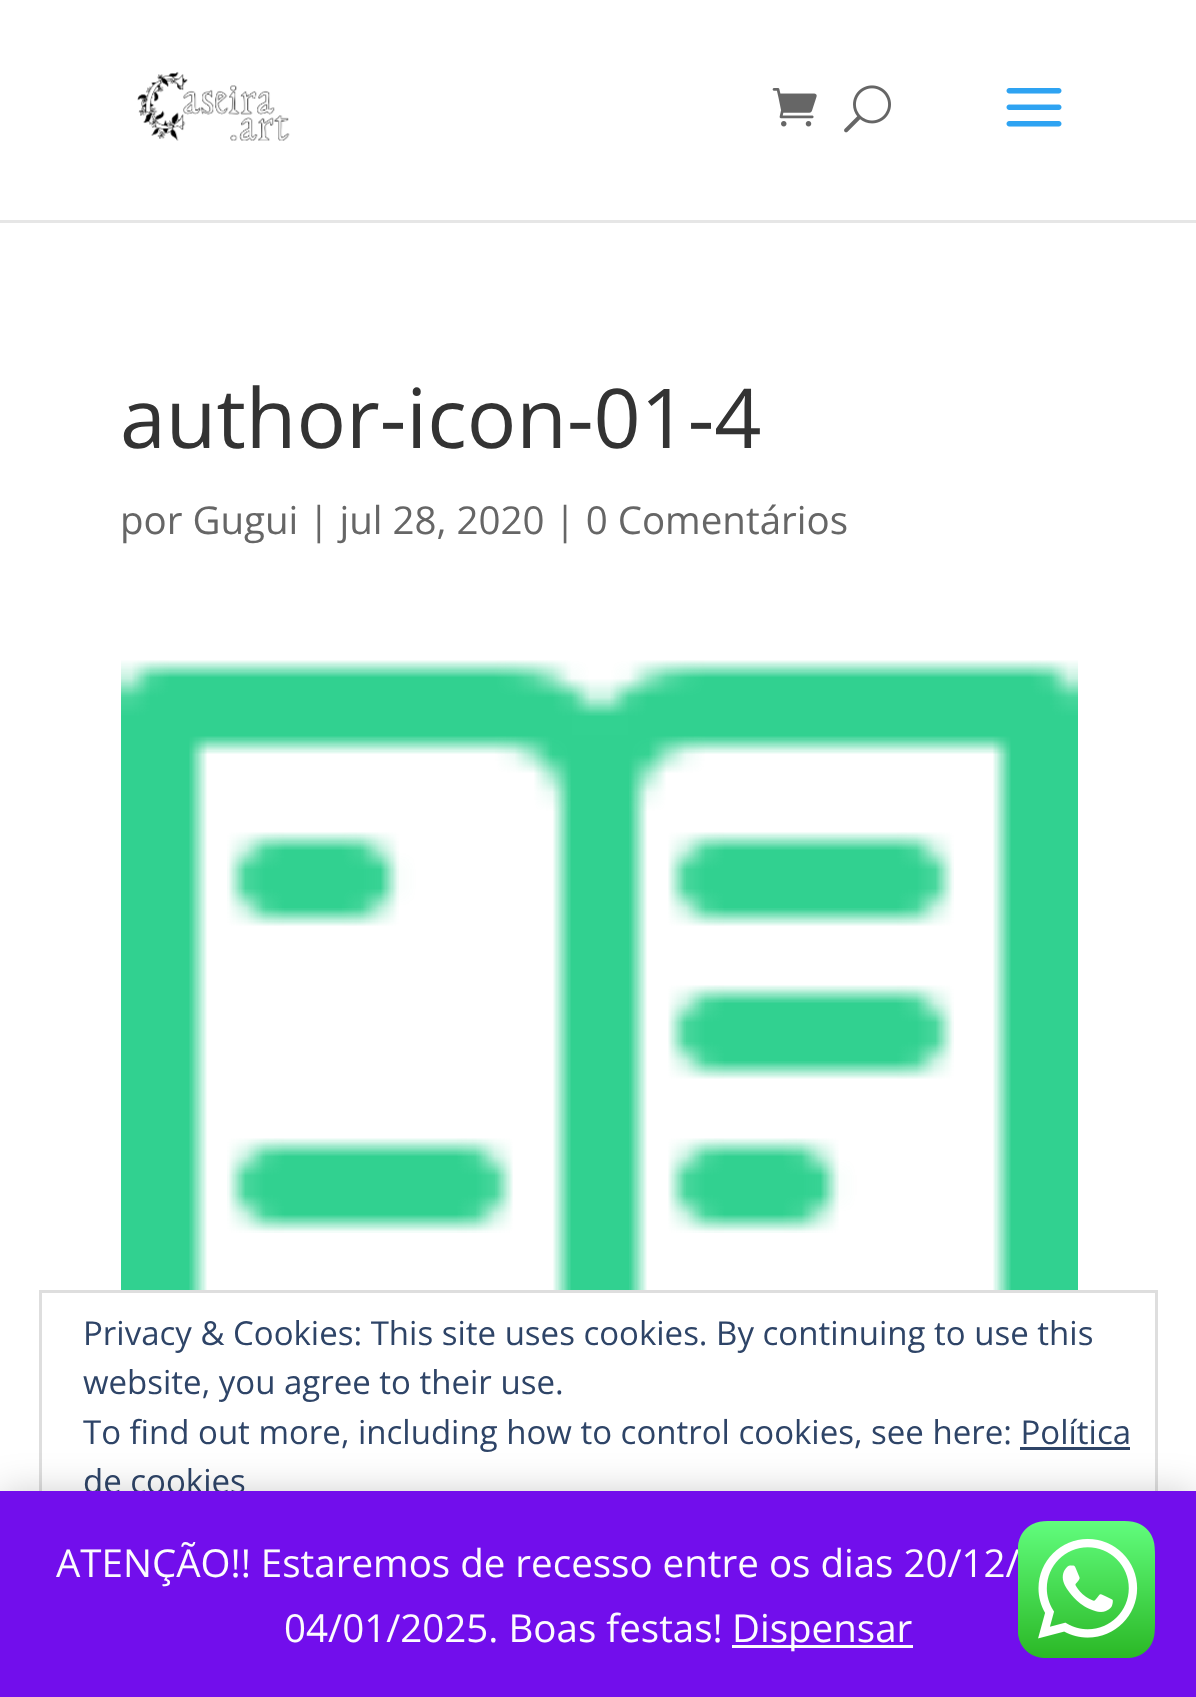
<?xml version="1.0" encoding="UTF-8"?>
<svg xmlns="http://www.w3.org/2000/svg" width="1196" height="1697">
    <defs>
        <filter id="blur1" x="-50%" y="-200%" width="200%" height="500%"><feGaussianBlur stdDeviation="19"/></filter>
    </defs>
    <rect width="100%" height="100%" fill="#FFFFFF"/>
    <rect x="0" y="220" width="1196" height="3" fill="#E6E6E6"/>
    <image x="137" y="71" width="153" height="70" href="img_01.png"/>
    <image x="772" y="88" width="45" height="39" href="img_02.png"/>
    <image x="844" y="85" width="47" height="48" href="img_03.png"/>
    <image x="1006" y="88" width="56" height="39" href="img_04.png"/>
    <text x="120" y="448" font-family="Open Sans" font-size="82.5" fill="#333333">author-icon-01-4</text>
    <text x="120" y="534" font-family="Open Sans" font-size="38.5" fill="#666666">por Gugui | jul 28, 2020 | 0 Comentários</text>
    <image x="121" y="660" width="957" height="630" href="img_05.png"/>
    <rect x="40.5" y="1291.5" width="1116" height="368" fill="none" stroke="#DEDEDE" stroke-width="3"/>
    <text font-family="Open Sans" font-size="33" fill="#2E4467">
        <tspan x="83" y="1345">Privacy &amp; Cookies: This site uses cookies. By continuing to use this</tspan>
        <tspan x="83" y="1394">website, you agree to their use.</tspan>
        <tspan x="83" y="1444">To find out more, including how to control cookies, see here: Política</tspan>
        <tspan x="83" y="1493">de cookies</tspan>
    </text>
    <rect x="1020" y="1447" width="110" height="3" fill="#2E4467"/>
    <rect x="0" y="1493" width="1196" height="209" fill="#000000" fill-opacity="0.2" filter="url(#blur1)"/>
    <rect x="0" y="1491" width="1196" height="206" fill="#720EEC"/>
    <text x="56" y="1577" font-family="Open Sans" font-size="38.5" fill="#FCFBFE">ATENÇÃO!! Estaremos de recesso entre os dias 20/12/</text>
    <text x="284" y="1642" font-family="Open Sans" font-size="38.5" fill="#FCFBFE">04/01/2025. Boas festas!</text>
    <rect x="732" y="1645" width="181" height="3" fill="#FCFBFE"/>
    <text x="732" y="1642" font-family="Open Sans" font-size="38.5" fill="#FCFBFE">Dispensar</text>
    <image x="1018" y="1521" width="137" height="137" href="img_06.png"/>
</svg>
